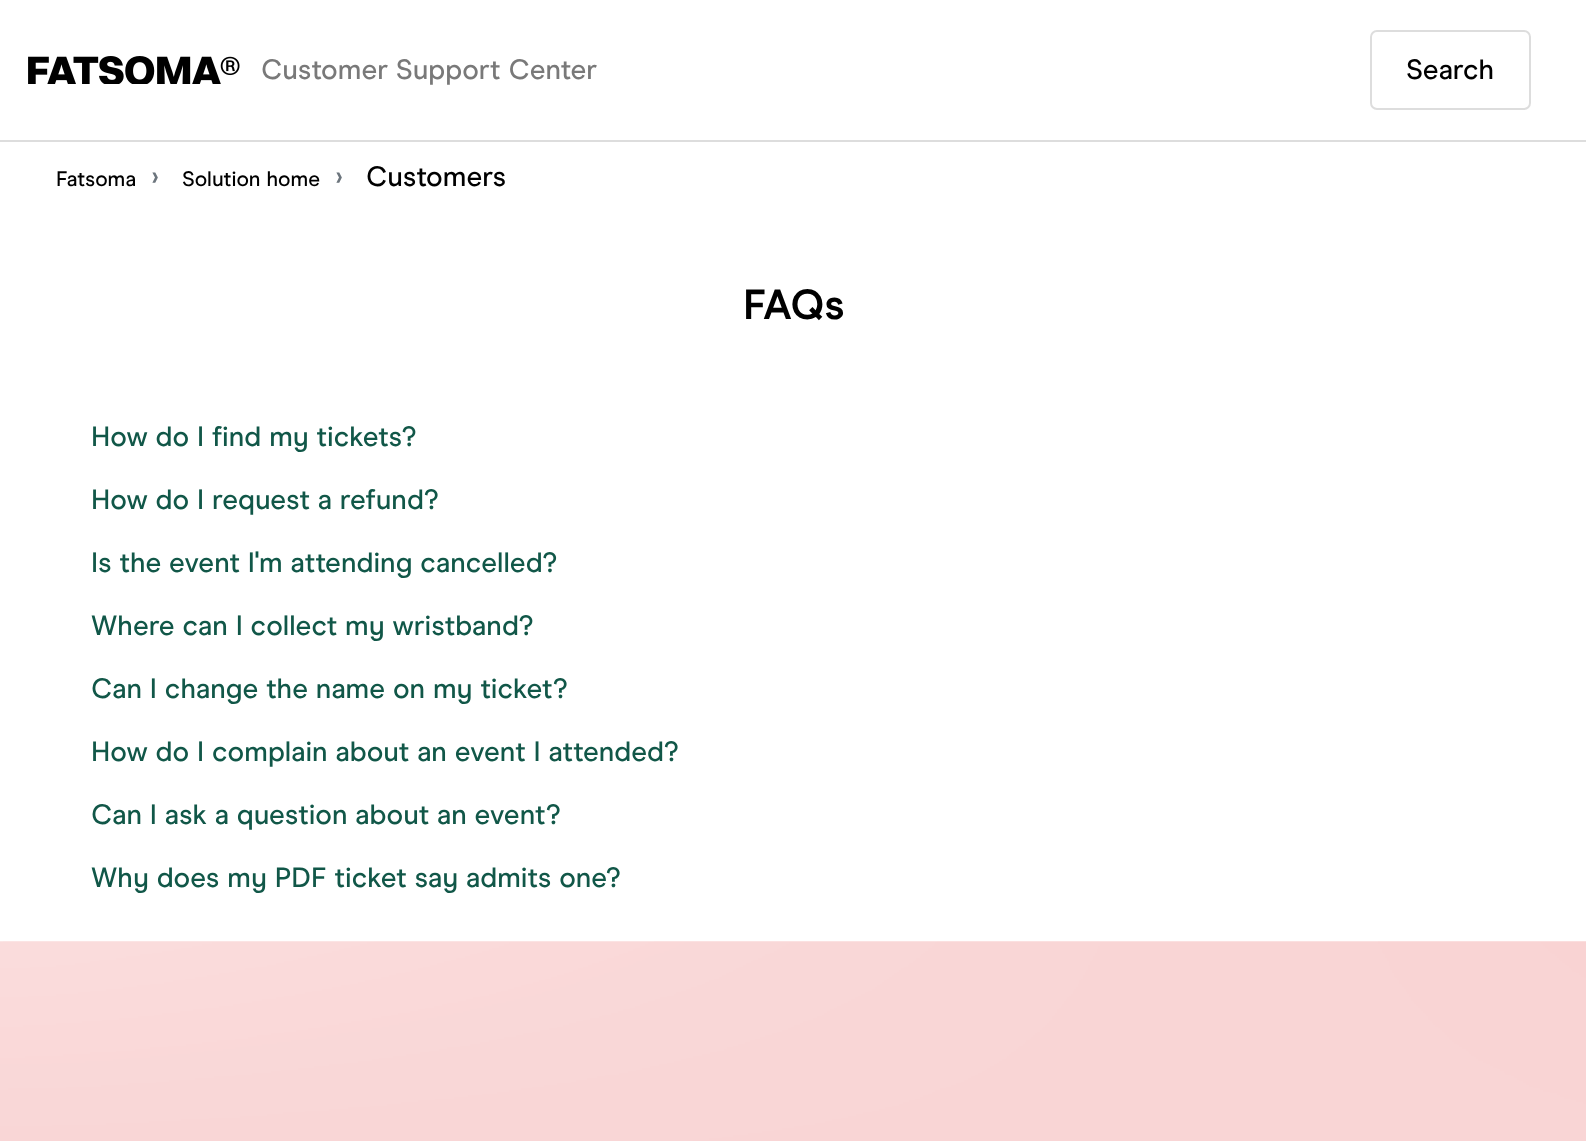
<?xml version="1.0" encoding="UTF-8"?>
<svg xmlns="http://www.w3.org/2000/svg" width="1586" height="1141">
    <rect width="100%" height="100%" fill="#FFFFFF"/>
    <rect x="0" y="140" width="1586" height="2" fill="#DDDDDD"/>
    <image x="28" y="56" width="212" height="28" href="img_01.png"/>
    <text x="261" y="79" font-family="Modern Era" font-size="28" font-weight="500" fill="#797979">Customer Support Center</text>
    <rect x="1371" y="31" width="159" height="78" rx="6" fill="none" stroke="#DDDDDD" stroke-width="2"/>
    <text x="1406" y="79" font-family="Modern Era" font-size="28" font-weight="500" fill="#000000">Search</text>
    <text x="56" y="186" font-family="Modern Era" font-size="21" font-weight="500" fill="#000000">Fatsoma</text>
    <text x="151" y="186" font-family="Modern Era" font-size="28" font-weight="500" fill="#6C757D">›</text>
    <text x="182" y="186" font-family="Modern Era" font-size="21" font-weight="500" fill="#000000">Solution home</text>
    <text x="335" y="186" font-family="Modern Era" font-size="28" font-weight="500" fill="#6C757D">›</text>
    <text x="366" y="186" font-family="Modern Era" font-size="28" font-weight="500" fill="#000000">Customers</text>
    <text x="743" y="319" font-family="Modern Era" font-size="42" font-weight="700" fill="#000000">FAQs</text>
    <text x="91" y="446" font-family="Modern Era" font-size="28" font-weight="500" fill="#115748">How do I find my tickets?</text>
    <text x="91" y="509" font-family="Modern Era" font-size="28" font-weight="500" fill="#115748">How do I request a refund?</text>
    <text x="91" y="572" font-family="Modern Era" font-size="28" font-weight="500" fill="#115748">Is the event I'm attending cancelled?</text>
    <text x="91" y="635" font-family="Modern Era" font-size="28" font-weight="500" fill="#115748">Where can I collect my wristband?</text>
    <text x="91" y="698" font-family="Modern Era" font-size="28" font-weight="500" fill="#115748">Can I change the name on my ticket?</text>
    <text x="91" y="761" font-family="Modern Era" font-size="28" font-weight="500" fill="#115748">How do I complain about an event I attended?</text>
    <text x="91" y="824" font-family="Modern Era" font-size="28" font-weight="500" fill="#115748">Can I ask a question about an event?</text>
    <text x="91" y="887" font-family="Modern Era" font-size="28" font-weight="500" fill="#115748">Why does my PDF ticket say admits one?</text>
    <image x="0" y="941" width="1586" height="200" href="img_02.png"/>
    <image x="0" y="941" width="1586" height="1" href="img_03.png"/>
</svg>
